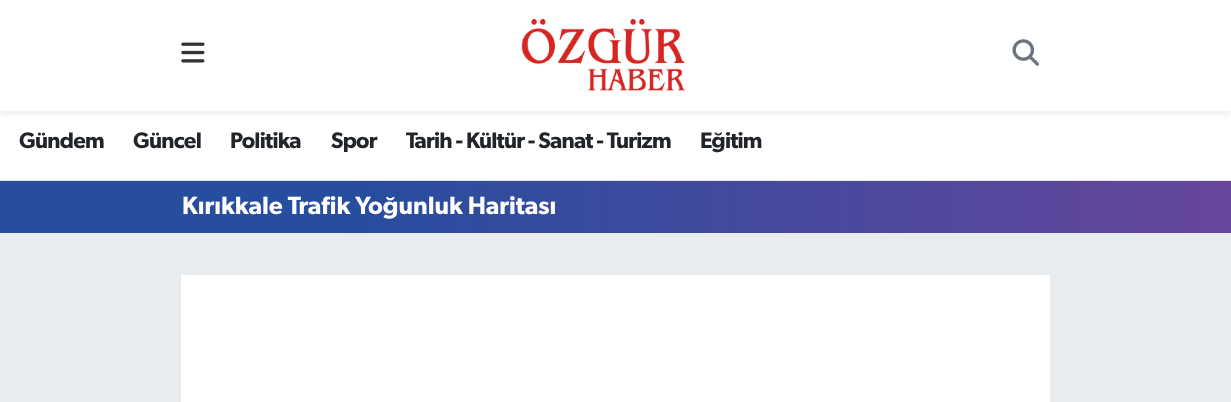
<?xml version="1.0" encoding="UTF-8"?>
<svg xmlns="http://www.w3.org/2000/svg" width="1231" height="402">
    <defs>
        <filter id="blur1" x="-50%" y="-200%" width="200%" height="500%"><feGaussianBlur stdDeviation="2.5"/></filter>
        <linearGradient id="g1" gradientUnits="userSpaceOnUse" x1="1231" y1="207" x2="0" y2="207"><stop offset="0" stop-color="#66469C"/><stop offset="0.72" stop-color="#274D9E"/></linearGradient>
    </defs>
    <rect width="100%" height="100%" fill="#E9ECEF"/>
    <rect x="0" y="111" width="1231" height="69" fill="#FFFFFF"/>
    <rect x="0" y="3" width="1231" height="111" fill="#000000" fill-opacity="0.07" filter="url(#blur1)"/>
    <rect x="0" y="0" width="1231" height="111" fill="#FFFFFF"/>
    <image x="181" y="42" width="24" height="21" href="img_01.png"/>
    <image x="521" y="18" width="164" height="73" href="img_02.png"/>
    <image x="1012" y="39" width="27" height="27" href="img_03.png"/>
    <rect x="0" y="180" width="1231" height="1" fill="#E6E6E6"/>
    <text x="19" y="148" font-family="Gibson" font-size="22.5" font-weight="600" letter-spacing="-0.75" fill="#212529">Gündem</text>
    <text x="133" y="148" font-family="Gibson" font-size="22.5" font-weight="600" letter-spacing="-0.75" fill="#212529">Güncel</text>
    <text x="230" y="148" font-family="Gibson" font-size="22.5" font-weight="600" letter-spacing="-0.75" fill="#212529">Politika</text>
    <text x="331" y="148" font-family="Gibson" font-size="22.5" font-weight="600" letter-spacing="-0.75" fill="#212529">Spor</text>
    <text x="406" y="148" font-family="Gibson" font-size="22.5" font-weight="600" letter-spacing="-0.75" fill="#212529">Tarih - Kültür - Sanat - Turizm</text>
    <text x="700" y="148" font-family="Gibson" font-size="22.5" font-weight="600" letter-spacing="-0.75" fill="#212529">Eğitim</text>
    <rect x="0" y="181" width="1231" height="52" fill="url(#g1)"/>
    <text x="182" y="214" font-family="Gibson" font-size="25" font-weight="600" fill="#FFFFFF">Kırıkkale Trafik Yoğunluk Haritası</text>
    <rect x="181" y="275" width="869" height="127" fill="#FFFFFF"/>
</svg>
